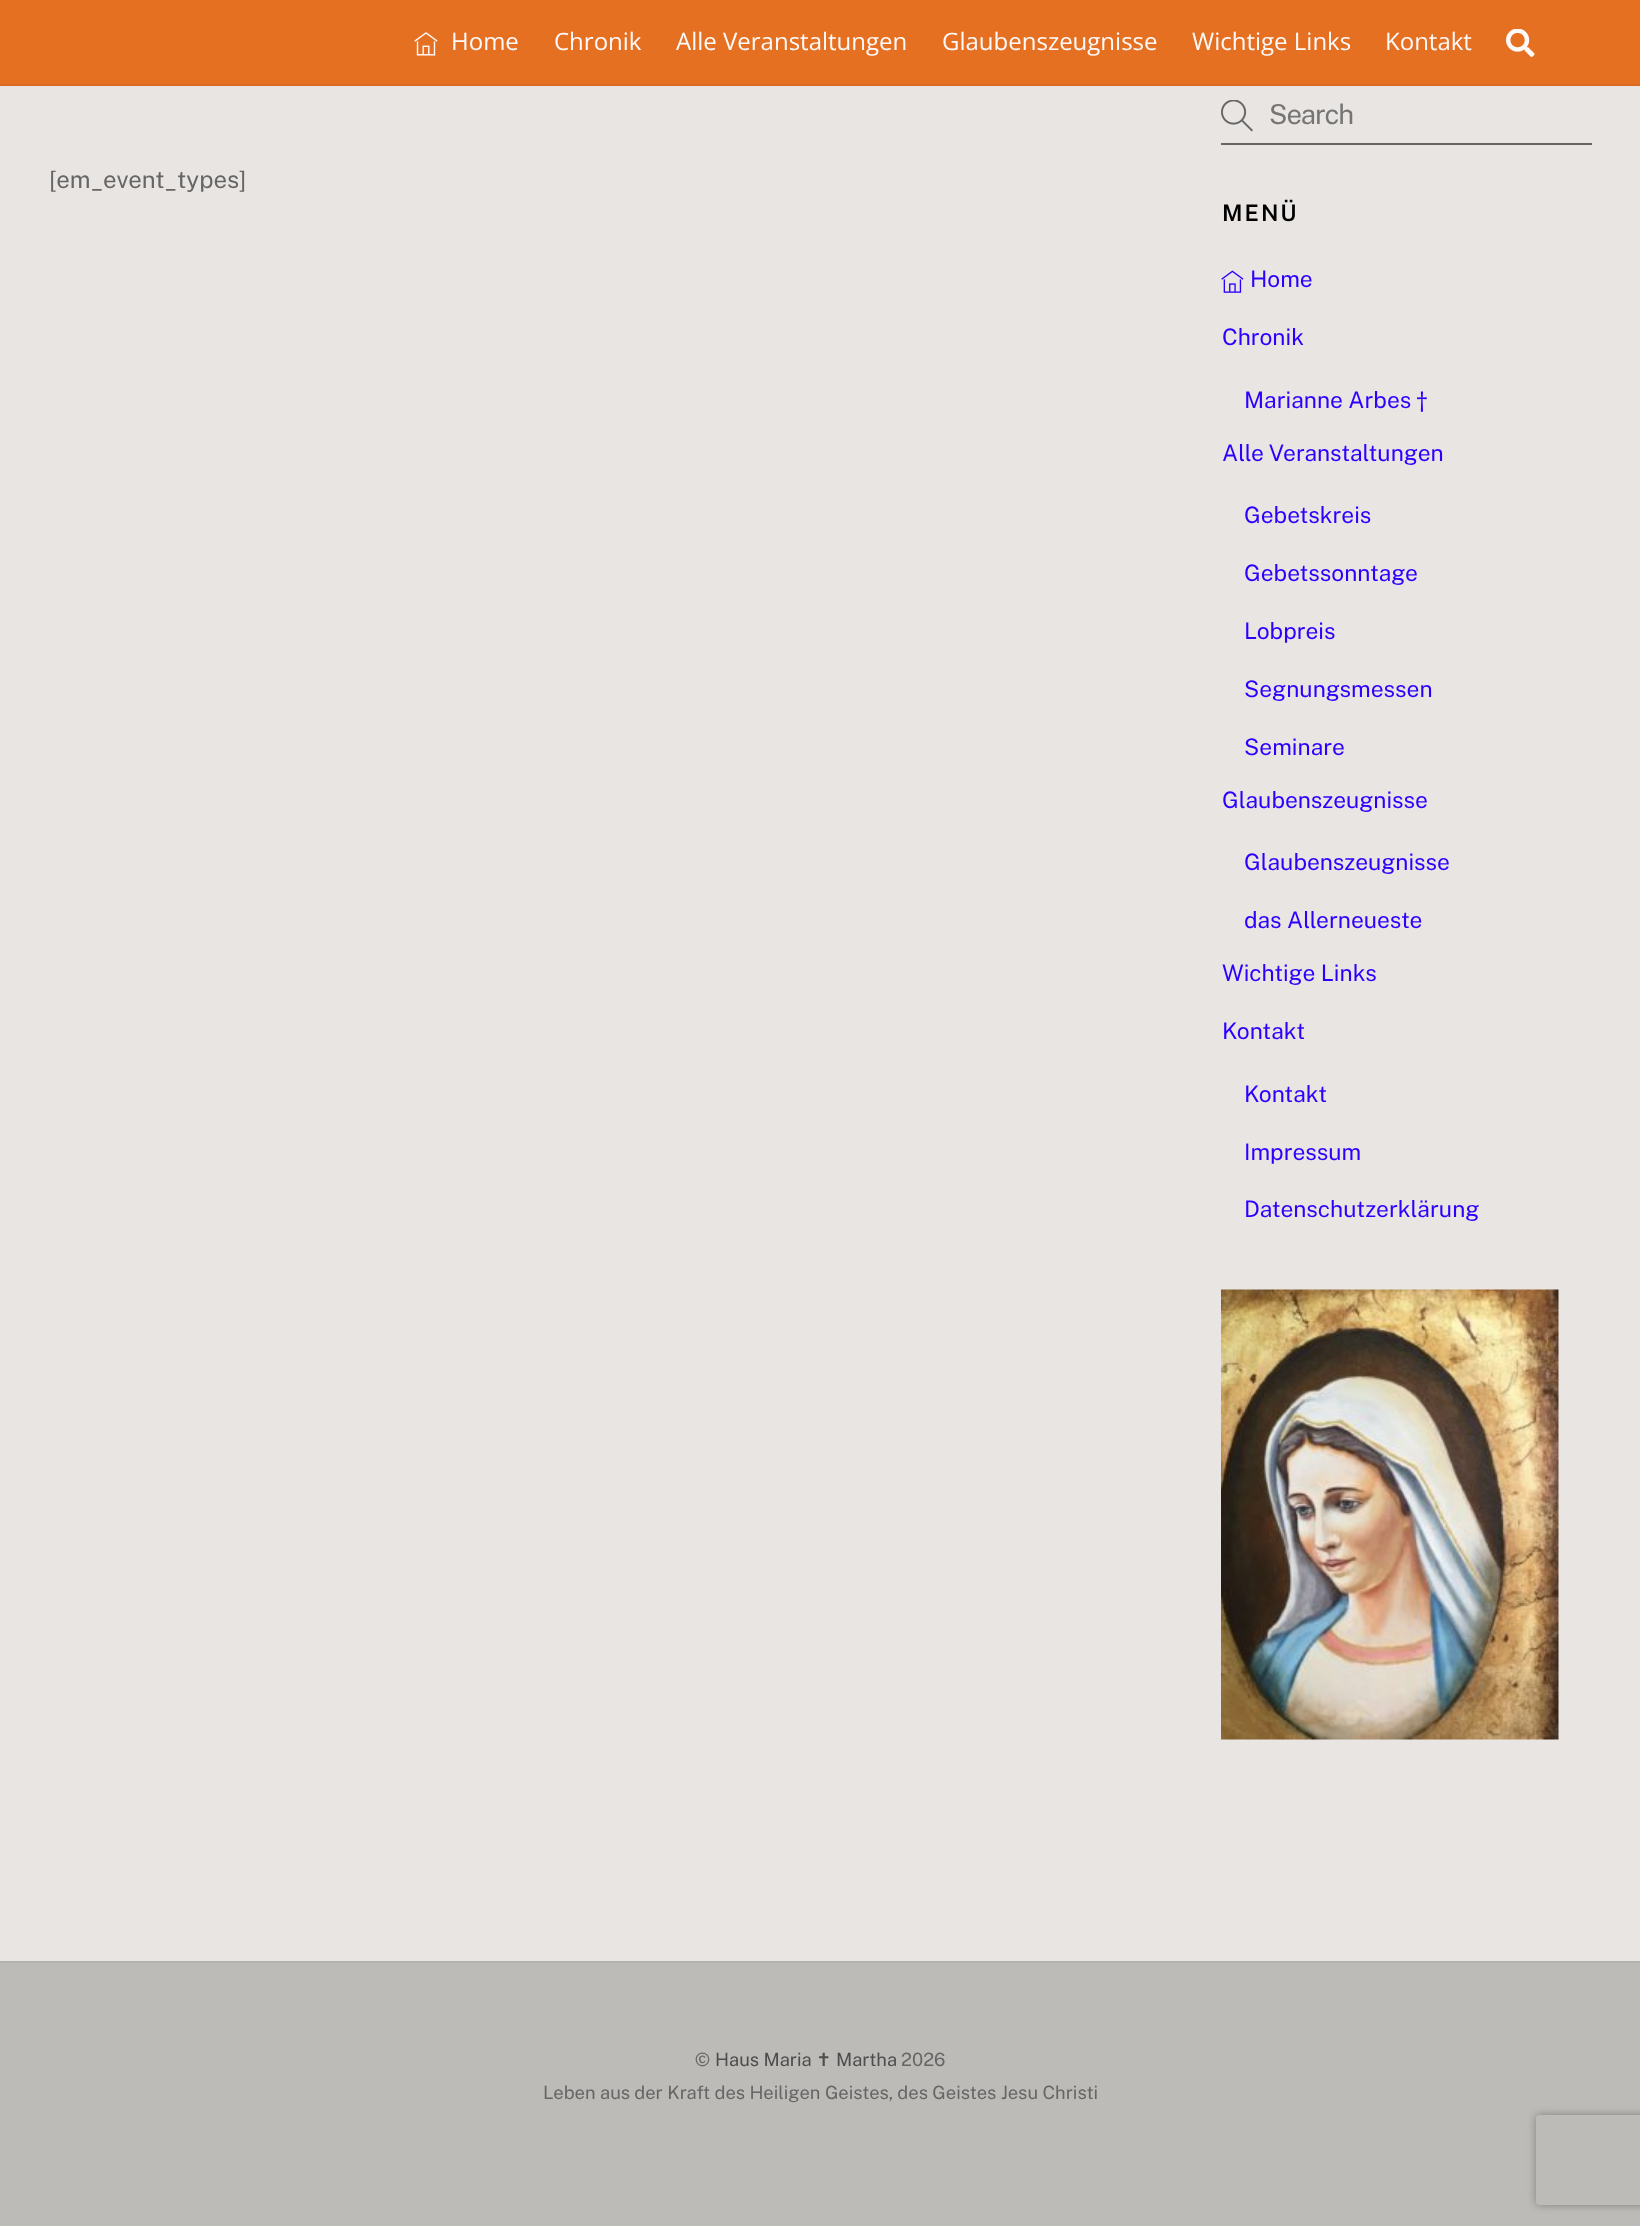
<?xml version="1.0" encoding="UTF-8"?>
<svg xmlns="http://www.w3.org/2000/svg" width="1640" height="2226">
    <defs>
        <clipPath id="clip1"><path d="M 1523 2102 H 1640 V 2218 H 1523 Z M 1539 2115 H 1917 C 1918.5 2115 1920 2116.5 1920 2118 V 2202 C 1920 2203.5 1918.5 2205 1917 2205 H 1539 C 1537.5 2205 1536 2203.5 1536 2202 V 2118 C 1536 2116.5 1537.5 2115 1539 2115 Z" clip-rule="evenodd"/></clipPath>
        <filter id="blur1" x="-50%" y="-200%" width="200%" height="500%"><feGaussianBlur stdDeviation="4"/></filter>
    </defs>
    <rect width="100%" height="100%" fill="#E9E5E2"/>
    <rect x="0" y="0" width="1640" height="84" fill="#E57022"/>
    <rect x="0" y="84" width="1640" height="2" fill="#DA6A20"/>
    <image x="414" y="32" width="24" height="24" href="img_01.png"/>
    <text x="451" y="50" font-family="Open Sans" font-size="24" fill="#FFFAFA">Home</text>
    <text x="554" y="50" font-family="Open Sans" font-size="24" fill="#FFFAFA">Chronik</text>
    <text x="676" y="50" font-family="Open Sans" font-size="24" fill="#FFFAFA">Alle Veranstaltungen</text>
    <text x="942" y="50" font-family="Open Sans" font-size="24" fill="#FFFAFA">Glaubenszeugnisse</text>
    <text x="1192" y="50" font-family="Open Sans" font-size="24" fill="#FFFAFA">Wichtige Links</text>
    <text x="1385" y="50" font-family="Open Sans" font-size="24" fill="#FFFAFA">Kontakt</text>
    <image x="1506" y="29" width="29" height="28" href="img_02.png"/>
    <text x="49" y="188" font-family="Public Sans" font-size="24" fill="#666666">[em_event_types]</text>
    <rect x="1221" y="143" width="371" height="2" fill="#666666"/>
    <image x="1221" y="100" width="32" height="32" href="img_03.png"/>
    <text x="1269" y="124" font-family="Public Sans" font-size="27.5" letter-spacing="-1" fill="#757575">Search</text>
    <text x="1222" y="221" font-family="Public Sans" font-size="22.75" font-weight="600" letter-spacing="2" fill="#000000">MENÜ</text>
    <image x="1221" y="270" width="23" height="23" href="img_04.png"/>
    <text x="1250" y="287" font-family="Public Sans" font-size="22.75" fill="#2B00FF">Home</text>
    <text x="1222" y="345" font-family="Public Sans" font-size="22.75" fill="#2B00FF">Chronik</text>
    <text x="1244" y="408" font-family="Public Sans" font-size="22.75" fill="#2B00FF">Marianne Arbes †</text>
    <text x="1222" y="461" font-family="Public Sans" font-size="22.75" fill="#2B00FF">Alle Veranstaltungen</text>
    <text x="1244" y="523" font-family="Public Sans" font-size="22.75" fill="#2B00FF">Gebetskreis</text>
    <text x="1244" y="581" font-family="Public Sans" font-size="22.75" fill="#2B00FF">Gebetssonntage</text>
    <text x="1244" y="639" font-family="Public Sans" font-size="22.75" fill="#2B00FF">Lobpreis</text>
    <text x="1244" y="697" font-family="Public Sans" font-size="22.75" fill="#2B00FF">Segnungsmessen</text>
    <text x="1244" y="755" font-family="Public Sans" font-size="22.75" fill="#2B00FF">Seminare</text>
    <text x="1222" y="808" font-family="Public Sans" font-size="22.75" fill="#2B00FF">Glaubenszeugnisse</text>
    <text x="1244" y="870" font-family="Public Sans" font-size="22.75" fill="#2B00FF">Glaubenszeugnisse</text>
    <text x="1244" y="928" font-family="Public Sans" font-size="22.75" fill="#2B00FF">das Allerneueste</text>
    <text x="1222" y="981" font-family="Public Sans" font-size="22.75" fill="#2B00FF">Wichtige Links</text>
    <text x="1222" y="1039" font-family="Public Sans" font-size="22.75" fill="#2B00FF">Kontakt</text>
    <text x="1244" y="1102" font-family="Public Sans" font-size="22.75" fill="#2B00FF">Kontakt</text>
    <text x="1244" y="1160" font-family="Public Sans" font-size="22.75" fill="#2B00FF">Impressum</text>
    <text x="1244" y="1217" font-family="Public Sans" font-size="22.75" fill="#2B00FF">Datenschutzerklärung</text>
    <image x="1221" y="1289" width="338" height="451" href="img_05.png"/>
    <rect x="0" y="1963" width="1640" height="263" fill="#BDBBB7"/>
    <rect x="0" y="1961" width="1640" height="2" fill="#B4B2AE"/>
    <text x="695" y="2066" font-family="Public Sans" font-size="18.35" fill="#666666">©</text>
    <text x="715" y="2066" font-family="Public Sans" font-size="18.35" fill="#4D4D4D">Haus Maria</text>
    <text x="816" y="2066" font-family="DejaVu Sans" font-size="18.35" fill="#4D4D4D">✝</text>
    <text x="836" y="2066" font-family="Public Sans" font-size="18.35" fill="#4D4D4D">Martha</text>
    <text x="901" y="2066" font-family="Public Sans" font-size="18.35" fill="#666666">2026</text>
    <text x="543" y="2099" font-family="Public Sans" font-size="18.35" fill="#666666">Leben aus der Kraft des Heiligen Geistes, des Geistes Jesu Christi</text>
    <g clip-path="url(#clip1)">
        <rect x="1536" y="2115" width="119" height="90" rx="3" fill="#808080" filter="url(#blur1)"/>
    </g>
</svg>
